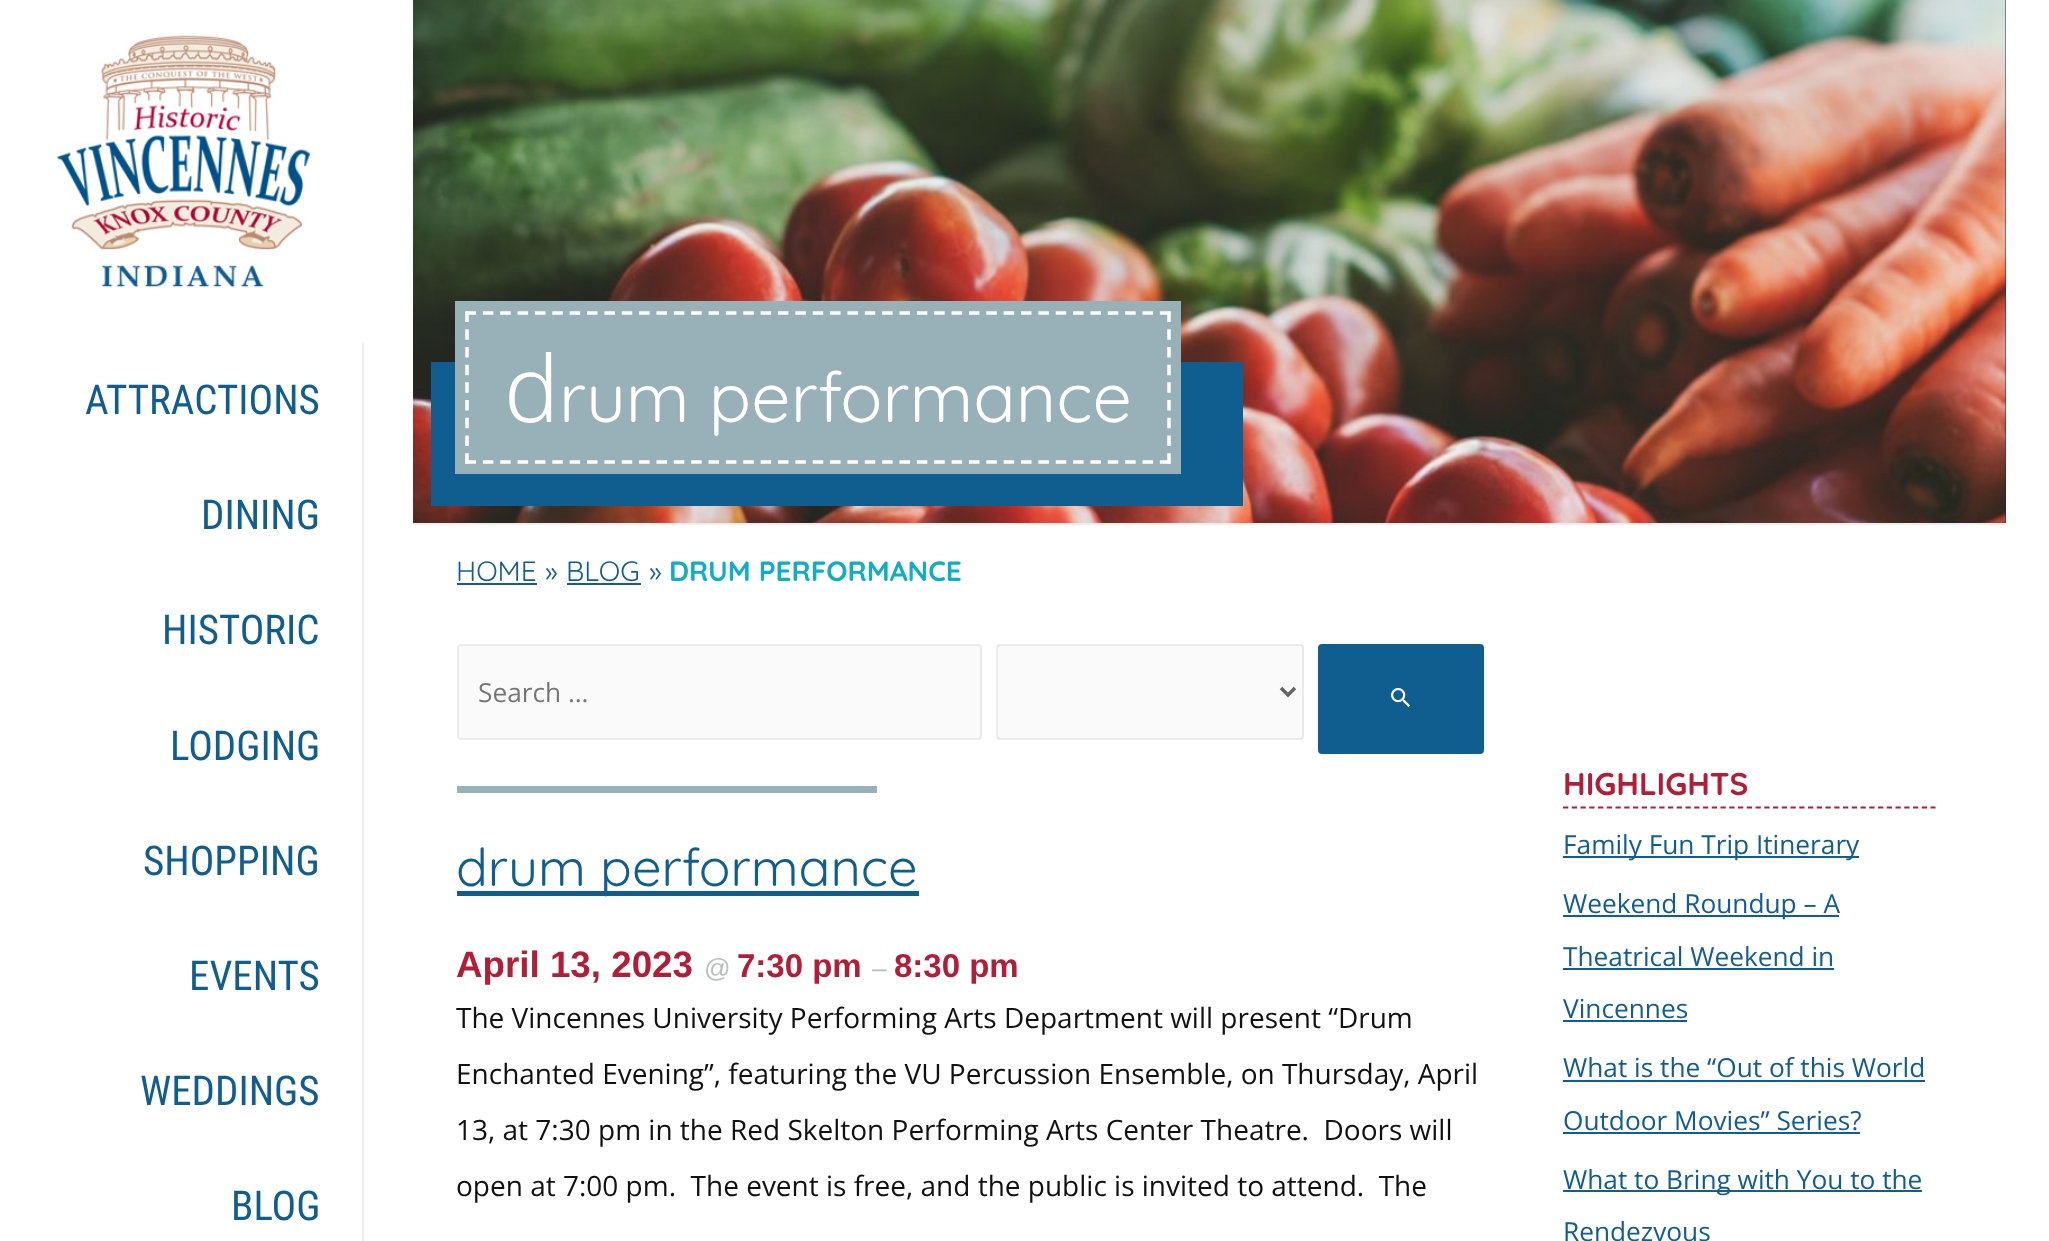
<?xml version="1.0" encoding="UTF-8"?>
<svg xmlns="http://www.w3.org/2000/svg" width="2049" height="1241">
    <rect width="100%" height="100%" fill="#FFFFFF"/>
    <image x="57" y="35" width="253" height="253" href="img_01.png"/>
    <rect x="362" y="343" width="2" height="898" fill="#EEEEEE"/>
    <text x="85" y="414" font-family="Roboto Condensed" font-size="41" fill="#105D8F">ATTRACTIONS</text>
    <text x="201" y="529" font-family="Roboto Condensed" font-size="41" fill="#105D8F">DINING</text>
    <text x="162" y="644" font-family="Roboto Condensed" font-size="41" fill="#105D8F">HISTORIC</text>
    <text x="170" y="760" font-family="Roboto Condensed" font-size="41" fill="#105D8F">LODGING</text>
    <text x="143" y="875" font-family="Roboto Condensed" font-size="41" fill="#105D8F">SHOPPING</text>
    <text x="189" y="990" font-family="Roboto Condensed" font-size="41" fill="#105D8F">EVENTS</text>
    <text x="140" y="1105" font-family="Roboto Condensed" font-size="41" fill="#105D8F">WEDDINGS</text>
    <text x="231" y="1220" font-family="Roboto Condensed" font-size="41" fill="#105D8F">BLOG</text>
    <rect x="2005" y="0" width="1" height="523" fill="#182755"/>
    <image x="413" y="0" width="1593" height="523" href="img_02.png"/>
    <rect x="413" y="523" width="1593" height="2" fill="#EEEEEE"/>
    <rect x="431" y="362" width="812" height="144" fill="#105D8F"/>
    <rect x="460.5" y="306.5" width="715" height="162" fill="none" stroke="#98B1B8" stroke-width="11"/>
    <rect x="466" y="312" width="704" height="151" fill="#98B1B8"/>
    <path d="M 465.5 313 H 1171" fill="none" stroke="#FFFFFF" stroke-width="3.5" stroke-dasharray="10.5 6.86"/>
    <path d="M 1169 311.5 V 464" fill="none" stroke="#FFFFFF" stroke-width="3.5" stroke-dasharray="10.5 7.21"/>
    <path d="M 465.5 462 H 1171" fill="none" stroke="#FFFFFF" stroke-width="3.5" stroke-dasharray="10.5 6.86"/>
    <path d="M 467 311.5 V 464" fill="none" stroke="#FFFFFF" stroke-width="3.5" stroke-dasharray="10.5 7.21"/>
    <text x="504" y="422" font-family="Noto Sans" font-size="92" font-weight="300" fill="#FFFFFF">d</text>
    <text x="559" y="422" font-family="Quicksand" font-size="70" font-weight="300" fill="#FFFFFF">rum performance</text>
    <text x="456" y="581" font-family="Quicksand" font-size="28" font-weight="300" fill="#105D8F">HOME</text>
    <rect x="457" y="583" width="80" height="2" fill="#105D8F"/>
    <text x="545" y="581" font-family="Quicksand" font-size="28" font-weight="300" fill="#105D8F">»</text>
    <text x="566" y="581" font-family="Quicksand" font-size="28" font-weight="300" fill="#105D8F">BLOG</text>
    <rect x="567" y="583" width="74" height="2" fill="#105D8F"/>
    <text x="649" y="581" font-family="Quicksand" font-size="28" font-weight="300" fill="#105D8F">»</text>
    <text x="669" y="581" font-family="Quicksand" font-size="28" font-weight="700" fill="#10AEC5">DRUM PERFORMANCE</text>
    <rect x="458" y="645" width="523" height="94" rx="3" fill="#FAFAFA" stroke="#EAEAEA" stroke-width="2"/>
    <text x="478" y="702" font-family="Open Sans" font-size="26.25" fill="#757575">Search …</text>
    <rect x="997" y="645" width="306" height="94" rx="3" fill="#FAFAFA" stroke="#EAEAEA" stroke-width="2"/>
    <path d="M 1281 688 L 1288 695 L 1295 688" fill="none" stroke="#666666" stroke-width="3.5"/>
    <rect x="1318" y="644" width="166" height="110" rx="4" fill="#105D8F"/>
    <image x="1391" y="688" width="20" height="19" href="img_03.png"/>
    <rect x="457" y="786" width="420" height="7" fill="#98B1B8"/>
    <rect x="457" y="891" width="462" height="5" fill="#105D8F"/>
    <text x="456" y="886" font-family="Quicksand" font-size="52.5" font-weight="300" fill="#105D8F">drum performance</text>
    <text x="456" y="977" font-family="Liberation Sans" font-size="36.75" font-weight="700" fill="#B21D38">April 13, 2023</text>
    <text x="704" y="977" font-family="Liberation Sans" font-size="26.25" fill="#B9BEC2">@</text>
    <text x="737" y="977" font-family="Liberation Sans" font-size="33" font-weight="700" fill="#B21D38">7:30 pm</text>
    <text x="872" y="977" font-family="Liberation Sans" font-size="26.25" fill="#B9BEC2">–</text>
    <text x="894" y="977" font-family="Liberation Sans" font-size="33" font-weight="700" fill="#B21D38">8:30 pm</text>
    <text x="456" y="1028" font-family="Open Sans" font-size="28" fill="#111111">The Vincennes University Performing Arts Department will present “Drum</text>
    <text x="456" y="1084" font-family="Open Sans" font-size="28" fill="#111111">Enchanted Evening”, featuring the VU Percussion Ensemble, on Thursday, April</text>
    <text x="456" y="1140" font-family="Open Sans" font-size="28" fill="#111111" xml:space="preserve">13, at 7:30 pm in the Red Skelton Performing Arts Center Theatre.  Doors will</text>
    <text x="456" y="1196" font-family="Open Sans" font-size="28" fill="#111111" xml:space="preserve">open at 7:00 pm.  The event is free, and the public is invited to attend.  The</text>
    <path d="M 1563 807.5 H 1935.5" fill="none" stroke="#B21D38" stroke-width="1.8" stroke-dasharray="5.25 3.5"/>
    <text x="1563" y="795" font-family="Quicksand" font-size="31.5" font-weight="700" fill="#B21D38">HIGHLIGHTS</text>
    <rect x="1563" y="856" width="296" height="2" fill="#105D8F"/>
    <text x="1563" y="854" font-family="Open Sans" font-size="26.25" fill="#105D8F">Family Fun Trip Itinerary</text>
    <rect x="1563" y="915" width="276" height="2" fill="#105D8F"/>
    <text x="1563" y="913" font-family="Open Sans" font-size="26.25" fill="#105D8F">Weekend Roundup – A</text>
    <text x="1563" y="966" font-family="Open Sans" font-size="26.25" fill="#105D8F">Theatrical Weekend in</text>
    <rect x="1563" y="968" width="271" height="2" fill="#105D8F"/>
    <text x="1563" y="1018" font-family="Open Sans" font-size="26.25" fill="#105D8F">Vincennes</text>
    <rect x="1563" y="1020" width="124" height="2" fill="#105D8F"/>
    <text x="1563" y="1077" font-family="Open Sans" font-size="26.25" fill="#105D8F">What is the “Out of this World</text>
    <rect x="1563" y="1080" width="362" height="2" fill="#105D8F"/>
    <text x="1563" y="1130" font-family="Open Sans" font-size="26.25" fill="#105D8F">Outdoor Movies” Series?</text>
    <rect x="1563" y="1132" width="297" height="2" fill="#105D8F"/>
    <rect x="1563" y="1190" width="359" height="2" fill="#105D8F"/>
    <text font-family="Open Sans" font-size="26.25" fill="#105D8F">
        <tspan x="1563" y="1189">What to Bring with You to the</tspan>
        <tspan x="1563" y="1241">Rendezvous</tspan>
    </text>
</svg>
